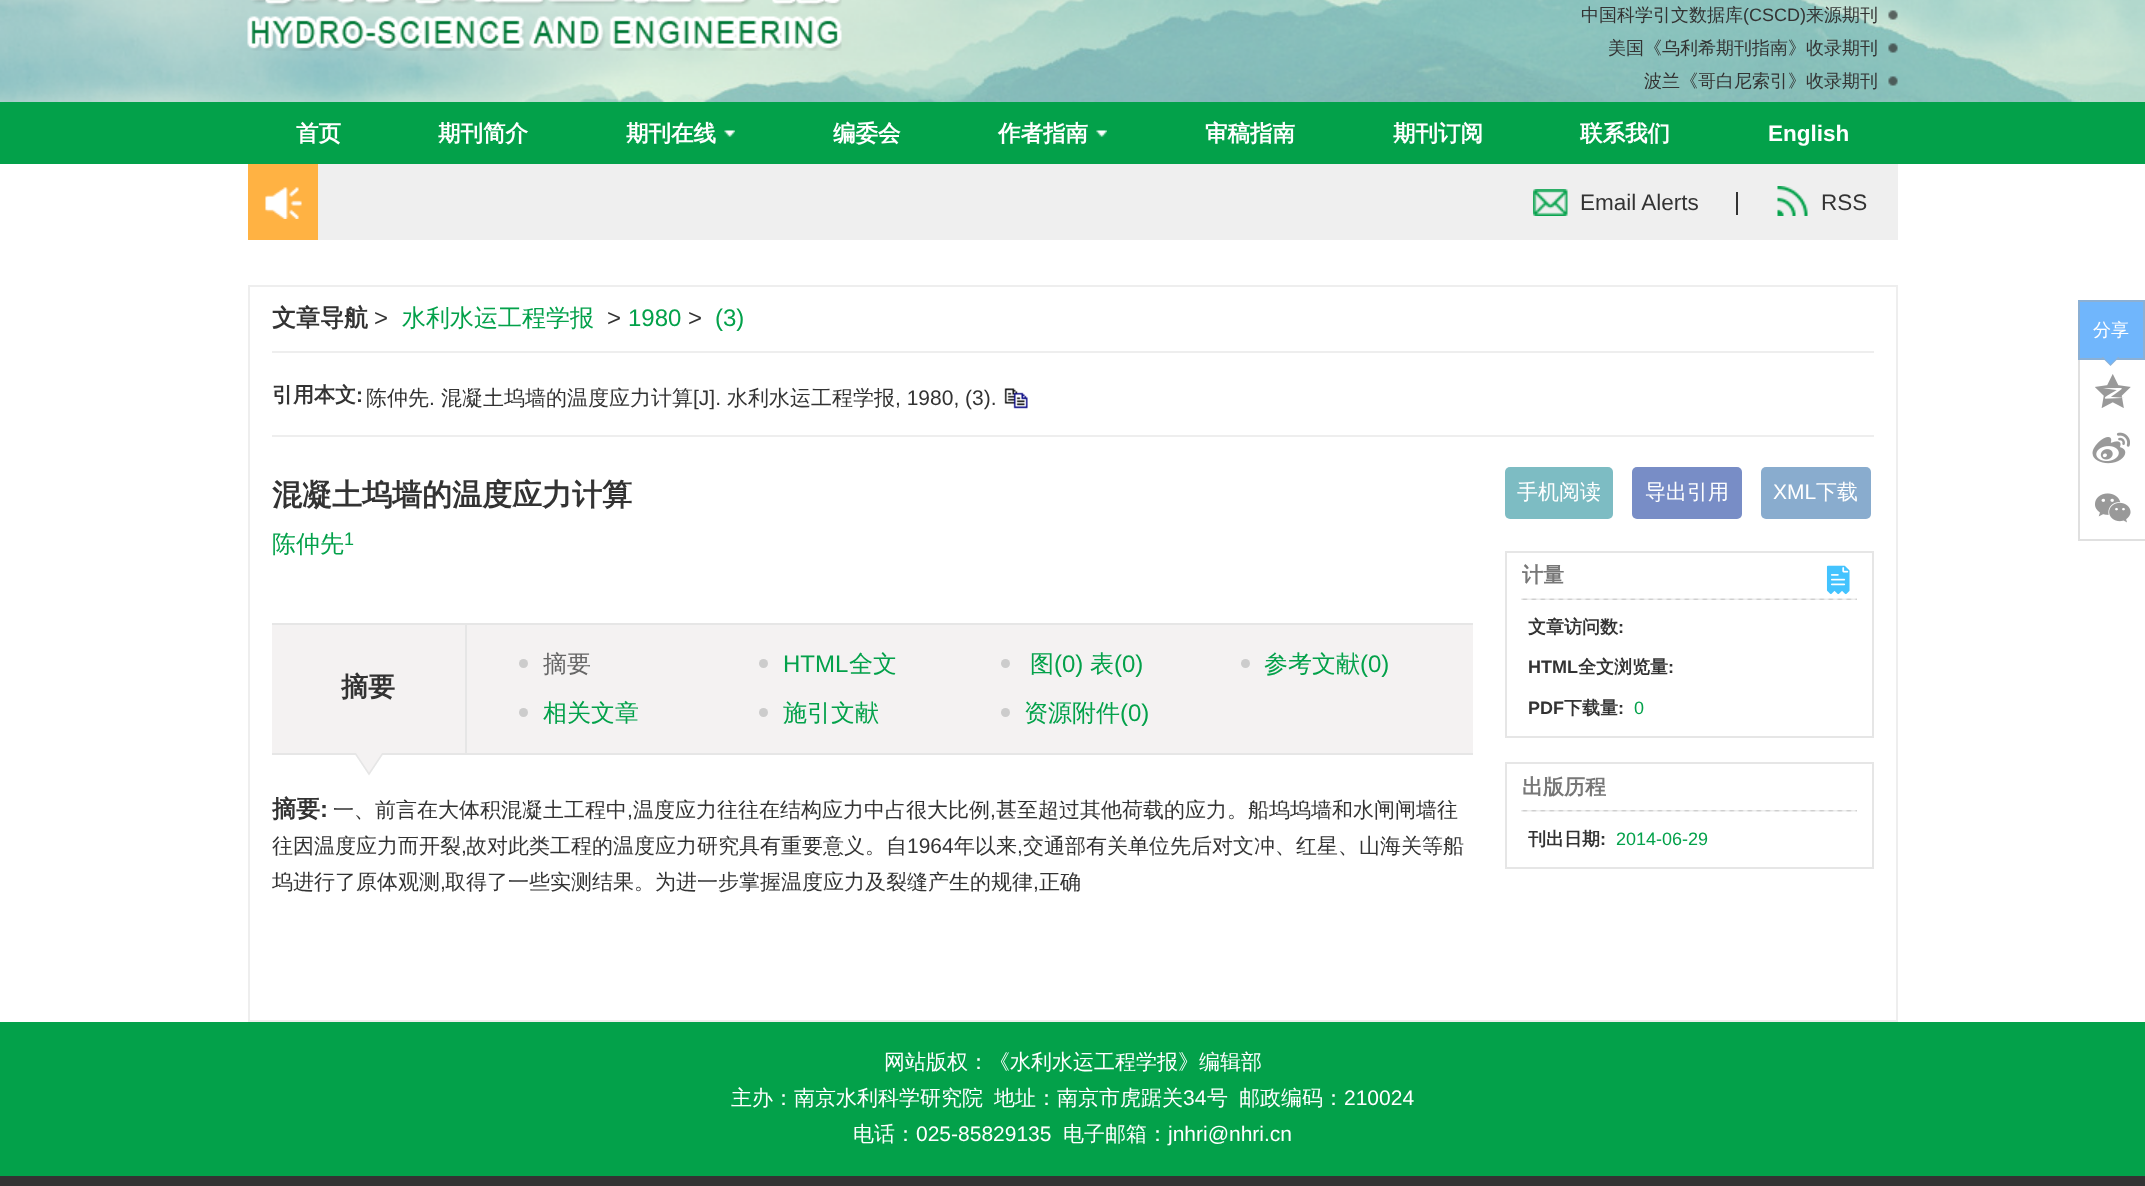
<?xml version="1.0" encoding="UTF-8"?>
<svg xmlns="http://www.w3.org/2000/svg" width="2145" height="1186">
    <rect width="100%" height="100%" fill="#FFFFFF"/>
    <image x="0" y="0" width="2145" height="102" href="img_01.png"/>
    <image x="247" y="0" width="595" height="51" href="img_02.png"/>
    <text x="1581" y="21" font-family="WenQuanYi Zen Hei" font-size="18" font-weight="500" fill="#333333">中国科学引文数据库</text>
    <text x="1743" y="21" font-family="Liberation Sans" font-size="18" fill="#333333">(CSCD)</text>
    <text x="1806" y="21" font-family="WenQuanYi Zen Hei" font-size="18" font-weight="500" fill="#333333">来源期刊</text>
    <image x="1888" y="10" width="10" height="10" href="img_03.png"/>
    <text x="1608" y="54" font-family="WenQuanYi Zen Hei" font-size="18" font-weight="500" fill="#333333">美国《乌利希期刊指南》收录期刊</text>
    <image x="1888" y="43" width="10" height="10" href="img_04.png"/>
    <text x="1644" y="87" font-family="WenQuanYi Zen Hei" font-size="18" font-weight="500" fill="#333333">波兰《哥白尼索引》收录期刊</text>
    <image x="1888" y="76" width="10" height="10" href="img_05.png"/>
    <rect x="0" y="102" width="2145" height="62" fill="#03A14A"/>
    <text x="296" y="141" font-family="WenQuanYi Zen Hei" font-size="22.5" font-weight="700" fill="#FFFFFF">首页</text>
    <text x="438" y="141" font-family="WenQuanYi Zen Hei" font-size="22.5" font-weight="700" fill="#FFFFFF">期刊简介</text>
    <text x="626" y="141" font-family="WenQuanYi Zen Hei" font-size="22.5" font-weight="700" fill="#FFFFFF">期刊在线</text>
    <image x="724" y="130" width="11" height="7" href="img_06.png"/>
    <text x="833" y="141" font-family="WenQuanYi Zen Hei" font-size="22.5" font-weight="700" fill="#FFFFFF">编委会</text>
    <text x="998" y="141" font-family="WenQuanYi Zen Hei" font-size="22.5" font-weight="700" fill="#FFFFFF">作者指南</text>
    <image x="1096" y="130" width="11" height="7" href="img_07.png"/>
    <text x="1205" y="141" font-family="WenQuanYi Zen Hei" font-size="22.5" font-weight="700" fill="#FFFFFF">审稿指南</text>
    <text x="1393" y="141" font-family="WenQuanYi Zen Hei" font-size="22.5" font-weight="700" fill="#FFFFFF">期刊订阅</text>
    <text x="1580" y="141" font-family="WenQuanYi Zen Hei" font-size="22.5" font-weight="700" fill="#FFFFFF">联系我们</text>
    <text x="1768" y="141" font-family="Liberation Sans" font-size="22.5" font-weight="700" fill="#FFFFFF">English</text>
    <rect x="318" y="164" width="1580" height="76" fill="#EFEFEF"/>
    <rect x="248" y="164" width="70" height="76" fill="#FFB243"/>
    <image x="265" y="187" width="37" height="32" href="img_08.png"/>
    <image x="1533" y="189" width="35" height="27" href="img_09.png"/>
    <text x="1580" y="210" font-family="Liberation Sans" font-size="22.5" fill="#333333">Email Alerts</text>
    <rect x="1736" y="192" width="2" height="23" fill="#333333"/>
    <image x="1777" y="186" width="31" height="30" href="img_10.png"/>
    <text x="1821" y="210" font-family="Liberation Sans" font-size="22.5" fill="#333333">RSS</text>
    <rect x="249" y="286" width="1648" height="735" fill="none" stroke="#EEEEEE" stroke-width="2"/>
    <rect x="272" y="351" width="1602" height="2" fill="#EEEEEE"/>
    <text x="272" y="326" font-family="WenQuanYi Zen Hei" font-size="24" font-weight="700" fill="#333333">文章导航</text>
    <text x="374" y="326" font-family="Liberation Sans" font-size="24" fill="#333333">&gt;</text>
    <text x="402" y="326" font-family="WenQuanYi Zen Hei" font-size="24" font-weight="500" fill="#03A14A">水利水运工程学报</text>
    <text x="607" y="326" font-family="Liberation Sans" font-size="24" fill="#333333">&gt;</text>
    <text x="628" y="326" font-family="Liberation Sans" font-size="24" fill="#03A14A">1980</text>
    <text x="688" y="326" font-family="Liberation Sans" font-size="24" fill="#333333">&gt;</text>
    <text x="715" y="326" font-family="Liberation Sans" font-size="24" fill="#03A14A">(3)</text>
    <rect x="272" y="435" width="1602" height="2" fill="#EEEEEE"/>
    <text x="272" y="402" font-family="WenQuanYi Zen Hei" font-size="21" font-weight="700" fill="#333333">引用本文</text>
    <text x="356" y="402" font-family="Liberation Sans" font-size="21" font-weight="700" fill="#333333">:</text>
    <text x="366" y="405" font-family="WenQuanYi Zen Hei" font-size="21" font-weight="500" fill="#333333">陈仲先</text>
    <text x="429" y="405" font-family="Liberation Sans" font-size="21" fill="#333333">.</text>
    <text x="441" y="405" font-family="WenQuanYi Zen Hei" font-size="21" font-weight="500" fill="#333333">混凝土坞墙的温度应力计算</text>
    <text x="693" y="405" font-family="Liberation Sans" font-size="21" fill="#333333">[J].</text>
    <text x="727" y="405" font-family="WenQuanYi Zen Hei" font-size="21" font-weight="500" fill="#333333">水利水运工程学报</text>
    <text x="895" y="405" font-family="Liberation Sans" font-size="21" fill="#333333">, 1980, (3).</text>
    <image x="1004" y="388" width="24" height="21" href="img_11.png"/>
    <text x="272" y="505" font-family="WenQuanYi Zen Hei" font-size="30" font-weight="700" fill="#333333">混凝土坞墙的温度应力计算</text>
    <text x="272" y="552" font-family="WenQuanYi Zen Hei" font-size="24" font-weight="500" fill="#03A14A">陈仲先</text>
    <text x="344" y="545" font-family="Liberation Sans" font-size="18" fill="#03A14A">1</text>
    <rect x="272" y="625" width="1201" height="128" fill="#F4F2F2"/>
    <rect x="272" y="623" width="1201" height="2" fill="#E6E6E6"/>
    <rect x="272" y="753" width="1201" height="2" fill="#E6E6E6"/>
    <rect x="465" y="624" width="2" height="129" fill="#E6E6E6"/>
    <text x="341" y="696" font-family="WenQuanYi Zen Hei" font-size="27" font-weight="700" fill="#333333">摘要</text>
    <path d="M 354 753 H 384 L 369 775.5 Z" fill="#E6E6E6"/>
    <path d="M 354 750 H 384 L 369 772.5 Z" fill="#F4F2F2"/>
    <circle cx="523.5" cy="663.5" r="4.5" fill="#CCCCCC"/>
    <text x="543" y="672" font-family="WenQuanYi Zen Hei" font-size="24" font-weight="500" fill="#666666">摘要</text>
    <circle cx="763.5" cy="663.5" r="4.5" fill="#CCCCCC"/>
    <text x="783" y="672" font-family="Liberation Sans" font-size="24" fill="#03A14A">HTML</text>
    <text x="849" y="672" font-family="WenQuanYi Zen Hei" font-size="24" font-weight="500" fill="#03A14A">全文</text>
    <circle cx="1005.5" cy="663.5" r="4.5" fill="#CCCCCC"/>
    <text x="1030" y="672" font-family="WenQuanYi Zen Hei" font-size="24" font-weight="500" fill="#03A14A">图</text>
    <text x="1054" y="672" font-family="Liberation Sans" font-size="24" fill="#03A14A">(0)</text>
    <text x="1090" y="672" font-family="WenQuanYi Zen Hei" font-size="24" font-weight="500" fill="#03A14A">表</text>
    <text x="1114" y="672" font-family="Liberation Sans" font-size="24" fill="#03A14A">(0)</text>
    <circle cx="1245.5" cy="663.5" r="4.5" fill="#CCCCCC"/>
    <text x="1264" y="672" font-family="WenQuanYi Zen Hei" font-size="24" font-weight="500" fill="#03A14A">参考文献</text>
    <text x="1360" y="672" font-family="Liberation Sans" font-size="24" fill="#03A14A">(0)</text>
    <circle cx="523.5" cy="712.5" r="4.5" fill="#CCCCCC"/>
    <text x="543" y="721" font-family="WenQuanYi Zen Hei" font-size="24" font-weight="500" fill="#03A14A">相关文章</text>
    <circle cx="763.5" cy="712.5" r="4.5" fill="#CCCCCC"/>
    <text x="783" y="721" font-family="WenQuanYi Zen Hei" font-size="24" font-weight="500" fill="#03A14A">施引文献</text>
    <circle cx="1005.5" cy="712.5" r="4.5" fill="#CCCCCC"/>
    <text x="1024" y="721" font-family="WenQuanYi Zen Hei" font-size="24" font-weight="500" fill="#03A14A">资源附件</text>
    <text x="1120" y="721" font-family="Liberation Sans" font-size="24" fill="#03A14A">(0)</text>
    <text x="272" y="817" font-family="WenQuanYi Zen Hei" font-size="24" font-weight="700" fill="#333333">摘要</text>
    <text x="320" y="817" font-family="Liberation Sans" font-size="24" font-weight="700" fill="#333333">:</text>
    <text x="333" y="817" font-family="WenQuanYi Zen Hei" font-size="21" font-weight="500" fill="#333333">一、前言在大体积混凝土工程中</text>
    <text x="627" y="817" font-family="Liberation Sans" font-size="21" fill="#333333">,</text>
    <text x="633" y="817" font-family="WenQuanYi Zen Hei" font-size="21" font-weight="500" fill="#333333">温度应力往往在结构应力中占很大比例</text>
    <text x="990" y="817" font-family="Liberation Sans" font-size="21" fill="#333333">,</text>
    <text x="996" y="817" font-family="WenQuanYi Zen Hei" font-size="21" font-weight="500" fill="#333333">甚至超过其他荷载的应力。船坞坞墙和水闸闸墙往</text>
    <text x="272" y="853" font-family="WenQuanYi Zen Hei" font-size="21" font-weight="500" fill="#333333">往因温度应力而开裂</text>
    <text x="461" y="853" font-family="Liberation Sans" font-size="21" fill="#333333">,</text>
    <text x="466" y="853" font-family="WenQuanYi Zen Hei" font-size="21" font-weight="500" fill="#333333">故对此类工程的温度应力研究具有重要意义。自</text>
    <text x="907" y="853" font-family="Liberation Sans" font-size="21" fill="#333333">1964</text>
    <text x="954" y="853" font-family="WenQuanYi Zen Hei" font-size="21" font-weight="500" fill="#333333">年以来</text>
    <text x="1017" y="853" font-family="Liberation Sans" font-size="21" fill="#333333">,</text>
    <text x="1023" y="853" font-family="WenQuanYi Zen Hei" font-size="21" font-weight="500" fill="#333333">交通部有关单位先后对文冲、红星、山海关等船</text>
    <text x="272" y="889" font-family="WenQuanYi Zen Hei" font-size="21" font-weight="500" fill="#333333">坞进行了原体观测</text>
    <text x="440" y="889" font-family="Liberation Sans" font-size="21" fill="#333333">,</text>
    <text x="445" y="889" font-family="WenQuanYi Zen Hei" font-size="21" font-weight="500" fill="#333333">取得了一些实测结果。为进一步掌握温度应力及裂缝产生的规律</text>
    <text x="1033" y="889" font-family="Liberation Sans" font-size="21" fill="#333333">,</text>
    <text x="1039" y="889" font-family="WenQuanYi Zen Hei" font-size="21" font-weight="500" fill="#333333">正确</text>
    <rect x="1505" y="467" width="108" height="52" rx="5" fill="#7DBCC3"/>
    <text x="1517" y="499" font-family="WenQuanYi Zen Hei" font-size="21" font-weight="500" fill="#FFFFFF">手机阅读</text>
    <rect x="1632" y="467" width="110" height="52" rx="5" fill="#788DC6"/>
    <text x="1645" y="499" font-family="WenQuanYi Zen Hei" font-size="21" font-weight="500" fill="#FFFFFF">导出引用</text>
    <rect x="1761" y="467" width="110" height="52" rx="5" fill="#89ACCE"/>
    <text x="1773" y="499" font-family="Liberation Sans" font-size="21" fill="#FFFFFF">XML</text>
    <text x="1816" y="499" font-family="WenQuanYi Zen Hei" font-size="21" font-weight="500" fill="#FFFFFF">下载</text>
    <rect x="1506" y="552" width="367" height="185" fill="none" stroke="#E6E6E6" stroke-width="2"/>
    <text x="1522" y="582" font-family="WenQuanYi Zen Hei" font-size="21" font-weight="700" fill="#777777">计量</text>
    <image x="1826" y="565" width="24" height="30" href="img_12.png"/>
    <image x="1521" y="598" width="336" height="2" href="img_13.png"/>
    <text x="1528" y="633" font-family="WenQuanYi Zen Hei" font-size="18" font-weight="700" fill="#333333">文章访问数</text>
    <text x="1618" y="633" font-family="Liberation Sans" font-size="18" font-weight="700" fill="#333333">:</text>
    <text x="1528" y="673" font-family="Liberation Sans" font-size="18" font-weight="700" fill="#333333">HTML</text>
    <text x="1578" y="673" font-family="WenQuanYi Zen Hei" font-size="18" font-weight="700" fill="#333333">全文浏览量</text>
    <text x="1668" y="673" font-family="Liberation Sans" font-size="18" font-weight="700" fill="#333333">:</text>
    <text x="1528" y="714" font-family="Liberation Sans" font-size="18" font-weight="700" fill="#333333">PDF</text>
    <text x="1564" y="714" font-family="WenQuanYi Zen Hei" font-size="18" font-weight="700" fill="#333333">下载量</text>
    <text x="1618" y="714" font-family="Liberation Sans" font-size="18" font-weight="700" fill="#333333">:</text>
    <text x="1634" y="714" font-family="Liberation Sans" font-size="18" fill="#03A14A">0</text>
    <rect x="1506" y="763" width="367" height="105" fill="none" stroke="#E6E6E6" stroke-width="2"/>
    <text x="1522" y="794" font-family="WenQuanYi Zen Hei" font-size="21" font-weight="700" fill="#777777">出版历程</text>
    <image x="1521" y="810" width="336" height="2" href="img_14.png"/>
    <text x="1528" y="845" font-family="WenQuanYi Zen Hei" font-size="18" font-weight="700" fill="#333333">刊出日期</text>
    <text x="1600" y="845" font-family="Liberation Sans" font-size="18" font-weight="700" fill="#333333">:</text>
    <text x="1616" y="845" font-family="Liberation Sans" font-size="18" fill="#03A14A">2014-06-29</text>
    <rect x="2078" y="539" width="67" height="2" fill="#E0E0E0"/>
    <rect x="2079" y="301" width="65" height="58" fill="#70B6FC" stroke="#8CB0D4" stroke-width="2"/>
    <text x="2093" y="336" font-family="WenQuanYi Zen Hei" font-size="18" font-weight="500" fill="#FFFFFF">分享</text>
    <path d="M 2101.5 357 H 2119.5 L 2110.5 366 Z" fill="#8CB0D4"/>
    <path d="M 2103 357 H 2118 L 2110.5 364.5 Z" fill="#70B6FC"/>
    <rect x="2078" y="360" width="2" height="180" fill="#E0E0E0"/>
    <image x="2095" y="374" width="36" height="34" href="img_15.png"/>
    <image x="2092" y="432" width="38" height="32" href="img_16.png"/>
    <image x="2095" y="493" width="36" height="30" href="img_17.png"/>
    <rect x="0" y="1022" width="2145" height="154" fill="#03A14A"/>
    <text x="884" y="1069" font-family="WenQuanYi Zen Hei" font-size="21" font-weight="500" fill="#FFFFFF">网站版权：《水利水运工程学报》编辑部</text>
    <text x="731" y="1105" font-family="WenQuanYi Zen Hei" font-size="21" font-weight="500" fill="#FFFFFF">主办：南京水利科学研究院</text>
    <text x="994" y="1105" font-family="WenQuanYi Zen Hei" font-size="21" font-weight="500" fill="#FFFFFF">地址：南京市虎踞关</text>
    <text x="1183" y="1105" font-family="Liberation Sans" font-size="21" fill="#FFFFFF">34</text>
    <text x="1207" y="1105" font-family="WenQuanYi Zen Hei" font-size="21" font-weight="500" fill="#FFFFFF">号</text>
    <text x="1239" y="1105" font-family="WenQuanYi Zen Hei" font-size="21" font-weight="500" fill="#FFFFFF">邮政编码：</text>
    <text x="1344" y="1105" font-family="Liberation Sans" font-size="21" fill="#FFFFFF">210024</text>
    <text x="853" y="1141" font-family="WenQuanYi Zen Hei" font-size="21" font-weight="500" fill="#FFFFFF">电话：</text>
    <text x="916" y="1141" font-family="Liberation Sans" font-size="21" fill="#FFFFFF">025-85829135</text>
    <text x="1063" y="1141" font-family="WenQuanYi Zen Hei" font-size="21" font-weight="500" fill="#FFFFFF">电子邮箱：</text>
    <text x="1168" y="1141" font-family="Liberation Sans" font-size="21" fill="#FFFFFF">jnhri@nhri.cn</text>
    <rect x="0" y="1176" width="2145" height="10" fill="#333333"/>
</svg>
